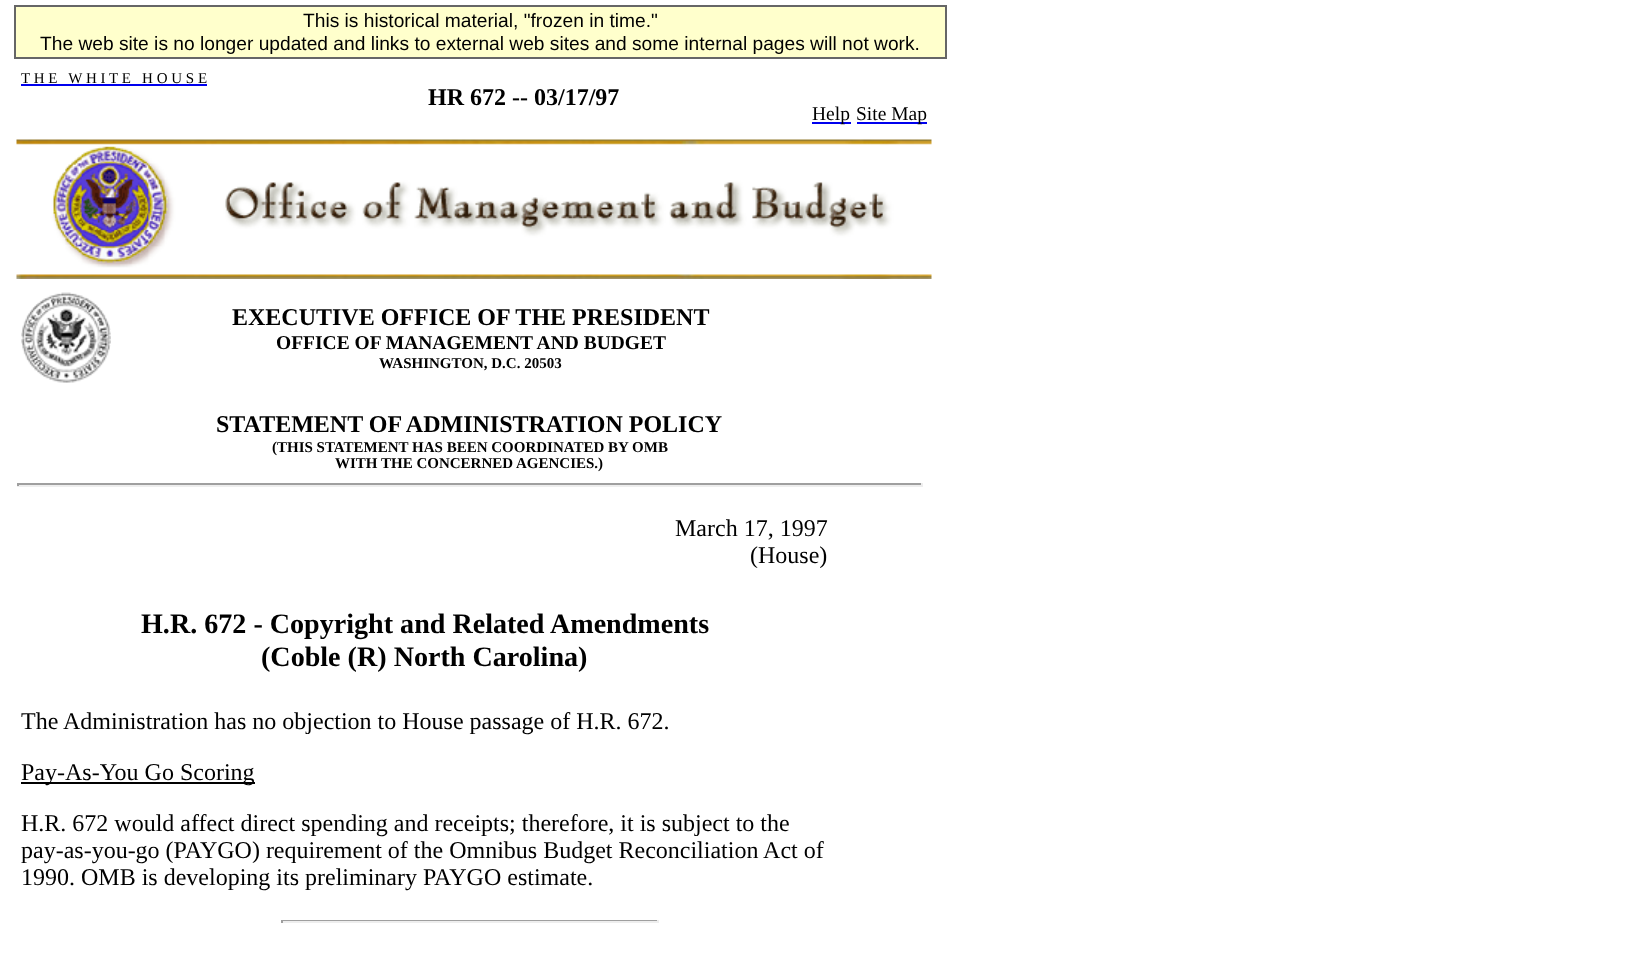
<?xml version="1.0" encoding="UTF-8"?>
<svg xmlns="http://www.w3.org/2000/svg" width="1635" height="953">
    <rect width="100%" height="100%" fill="#FFFFFF"/>
    <rect x="15" y="6" width="931" height="52" fill="#FFFFCC" stroke="#666666" stroke-width="2"/>
    <text x="303" y="27" font-family="Liberation Sans" font-size="19.2" fill="#000000">This is historical material, "frozen in time."</text>
    <text x="40" y="50" font-family="Liberation Sans" font-size="19.2" fill="#000000">The web site is no longer updated and links to external web sites and some internal pages will not work.</text>
    <text x="21" y="83" font-family="Liberation Serif" font-size="15" fill="#000000" xml:space="preserve">T H E   W H I T E   H O U S E</text>
    <rect x="21" y="84" width="186" height="2" fill="#0000EE"/>
    <text x="428" y="105" font-family="Liberation Serif" font-size="24" font-weight="700" fill="#000000">HR 672 -- 03/17/97</text>
    <rect x="812" y="122" width="39" height="2" fill="#0000EE"/>
    <text x="812" y="120" font-family="Liberation Serif" font-size="19.5" fill="#000000">Help</text>
    <rect x="857" y="122" width="70" height="2" fill="#0000EE"/>
    <text x="856" y="120" font-family="Liberation Serif" font-size="19.5" fill="#000000">Site Map</text>
    <image x="16" y="139" width="916" height="129" href="img_01.png"/>
    <image x="16" y="274" width="916" height="5" href="img_02.png"/>
    <image x="21" y="292" width="90" height="91" href="img_03.png"/>
    <text x="232" y="325" font-family="Liberation Serif" font-size="24" font-weight="700" fill="#000000">EXECUTIVE OFFICE OF THE PRESIDENT</text>
    <text x="276" y="349" font-family="Liberation Serif" font-size="19.5" font-weight="700" fill="#000000">OFFICE OF MANAGEMENT AND BUDGET</text>
    <text x="379" y="368" font-family="Liberation Serif" font-size="15" font-weight="700" fill="#000000">WASHINGTON, D.C. 20503</text>
    <text x="216" y="432" font-family="Liberation Serif" font-size="24" font-weight="700" fill="#000000">STATEMENT OF ADMINISTRATION POLICY</text>
    <text x="272" y="452" font-family="Liberation Serif" font-size="15" font-weight="700" fill="#000000">(THIS STATEMENT HAS BEEN COORDINATED BY OMB</text>
    <text x="335" y="468" font-family="Liberation Serif" font-size="15" font-weight="700" fill="#000000">WITH THE CONCERNED AGENCIES.)</text>
    <rect x="17" y="483" width="906" height="2" fill="#9F9F9F"/>
    <rect x="921" y="483" width="2" height="3" fill="#EEEEEE"/>
    <rect x="17" y="485" width="906" height="2" fill="#EEEEEE"/>
    <rect x="17" y="483" width="2" height="3" fill="#9F9F9F"/>
    <text x="675" y="536" font-family="Liberation Serif" font-size="24" fill="#000000">March 17, 1997</text>
    <text x="750" y="563" font-family="Liberation Serif" font-size="24" fill="#000000">(House)</text>
    <text x="141" y="633" font-family="Liberation Serif" font-size="28.1" font-weight="700" fill="#000000">H.R. 672 - Copyright and Related Amendments</text>
    <text x="261" y="666" font-family="Liberation Serif" font-size="28.1" font-weight="700" fill="#000000">(Coble (R) North Carolina)</text>
    <text x="21" y="729" font-family="Liberation Serif" font-size="24" fill="#000000">The Administration has no objection to House passage of H.R. 672.</text>
    <rect x="21" y="782" width="234" height="2" fill="#000000"/>
    <text x="21" y="780" font-family="Liberation Serif" font-size="24" fill="#000000">Pay-As-You Go Scoring</text>
    <text font-family="Liberation Serif" font-size="24" fill="#000000">
        <tspan x="21" y="831">H.R. 672 would affect direct spending and receipts; therefore, it is subject to the</tspan>
        <tspan x="21" y="858">pay-as-you-go (PAYGO) requirement of the Omnibus Budget Reconciliation Act of</tspan>
        <tspan x="21" y="885">1990. OMB is developing its preliminary PAYGO estimate.</tspan>
    </text>
    <rect x="281" y="920" width="378" height="1" fill="#9F9F9F"/>
    <rect x="657" y="920" width="2" height="3" fill="#EEEEEE"/>
    <rect x="281" y="921" width="378" height="2" fill="#EEEEEE"/>
    <rect x="281" y="920" width="2" height="3" fill="#9F9F9F"/>
</svg>
